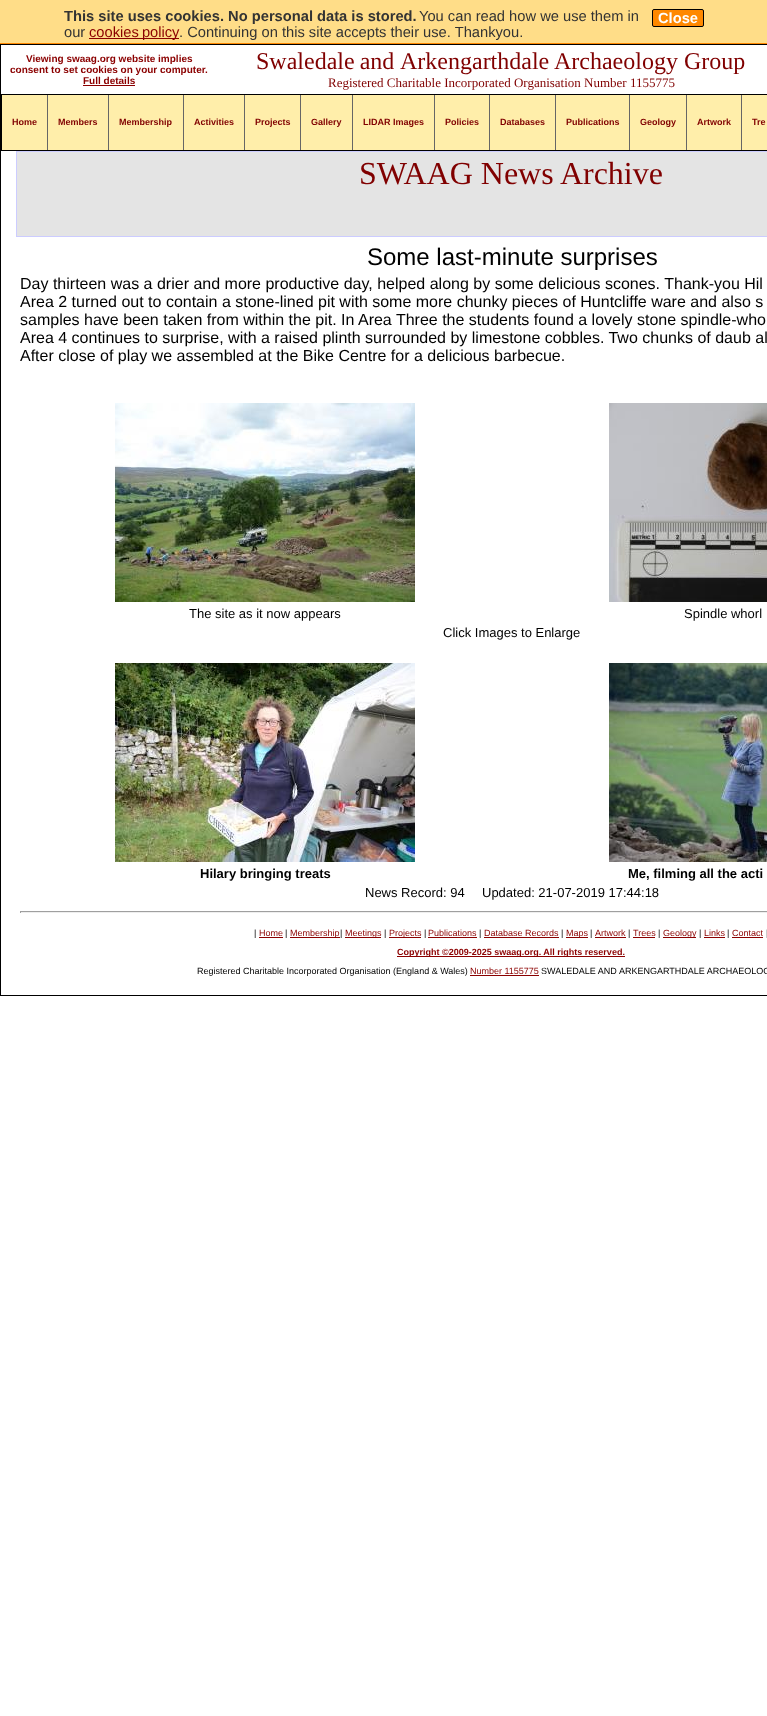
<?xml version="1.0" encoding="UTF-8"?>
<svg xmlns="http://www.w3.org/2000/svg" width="767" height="1716">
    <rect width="100%" height="100%" fill="#FFFFFF"/>
    <rect x="0" y="0" width="767" height="43" fill="#FFDD88"/>
    <rect x="0" y="43" width="767" height="1" fill="#FF8800"/>
    <text x="64" y="21" font-family="Liberation Sans" font-size="14.7" font-weight="700" fill="#333333">This site uses cookies. No personal data is stored.</text>
    <text x="419" y="21" font-family="Liberation Sans" font-size="14.7" fill="#333333">You can read how we use them in</text>
    <text x="64" y="37" font-family="Liberation Sans" font-size="14.7" fill="#333333">our</text>
    <rect x="89" y="38" width="90" height="1" fill="#8B0000"/>
    <text x="89" y="37" word-spacing="-1" font-family="Liberation Sans" font-size="14.7" fill="#8B0000">cookies policy</text>
    <text x="179" y="37" font-family="Liberation Sans" font-size="14.7" fill="#333333">. Continuing on this site accepts their use. Thankyou.</text>
    <rect x="652.5" y="9.5" width="51" height="17" rx="1.5" fill="#FF8800" stroke="#000000"/>
    <text x="658" y="23" font-family="Liberation Sans" font-size="14.7" font-weight="700" fill="#FFFFFF">Close</text>
    <rect x="0.5" y="44.5" width="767" height="951" fill="none" stroke="#000000"/>
    <text x="26" y="62" font-family="Liberation Sans" font-size="10" font-weight="700" fill="#8B0000">Viewing swaag.org website implies</text>
    <text x="10" y="73" font-family="Liberation Sans" font-size="10" font-weight="700" fill="#8B0000">consent to set cookies on your computer.</text>
    <text x="83" y="84" font-family="Liberation Sans" font-size="10" font-weight="700" fill="#8B0000">Full details</text>
    <rect x="83" y="85" width="52" height="1" fill="#8B0000"/>
    <text x="256" y="69" word-spacing="-1" font-family="Liberation Serif" font-size="24" fill="#800000">Swaledale and</text>
    <text x="400" y="69" font-family="Liberation Serif" font-size="24" fill="#800000">Arkengarthdale Archaeology Group</text>
    <text x="328" y="87" font-family="Liberation Serif" font-size="13" fill="#800000">Registered Charitable Incorporated Organisation Number 1155775</text>
    <rect x="1.5" y="94.5" width="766" height="56" fill="#FFEEAA" stroke="#000000"/>
    <rect x="47" y="95" width="1" height="55" fill="#666666"/>
    <text x="12" y="125" font-family="Liberation Sans" font-size="9" font-weight="700" fill="#800000">Home</text>
    <rect x="108" y="95" width="1" height="55" fill="#666666"/>
    <text x="58" y="125" font-family="Liberation Sans" font-size="9" font-weight="700" fill="#800000">Members</text>
    <rect x="183" y="95" width="1" height="55" fill="#666666"/>
    <text x="119" y="125" font-family="Liberation Sans" font-size="9" font-weight="700" fill="#800000">Membership</text>
    <rect x="244" y="95" width="1" height="55" fill="#666666"/>
    <text x="194" y="125" font-family="Liberation Sans" font-size="9" font-weight="700" fill="#800000">Activities</text>
    <rect x="300" y="95" width="1" height="55" fill="#666666"/>
    <text x="255" y="125" font-family="Liberation Sans" font-size="9" font-weight="700" fill="#800000">Projects</text>
    <rect x="352" y="95" width="1" height="55" fill="#666666"/>
    <text x="311" y="125" font-family="Liberation Sans" font-size="9" font-weight="700" fill="#800000">Gallery</text>
    <rect x="434" y="95" width="1" height="55" fill="#666666"/>
    <text x="363" y="125" font-family="Liberation Sans" font-size="9" font-weight="700" fill="#800000">LIDAR Images</text>
    <rect x="489" y="95" width="1" height="55" fill="#666666"/>
    <text x="445" y="125" font-family="Liberation Sans" font-size="9" font-weight="700" fill="#800000">Policies</text>
    <rect x="555" y="95" width="1" height="55" fill="#666666"/>
    <text x="500" y="125" font-family="Liberation Sans" font-size="9" font-weight="700" fill="#800000">Databases</text>
    <rect x="629" y="95" width="1" height="55" fill="#666666"/>
    <text x="566" y="125" font-family="Liberation Sans" font-size="9" font-weight="700" fill="#800000">Publications</text>
    <rect x="686" y="95" width="1" height="55" fill="#666666"/>
    <text x="640" y="125" font-family="Liberation Sans" font-size="9" font-weight="700" fill="#800000">Geology</text>
    <rect x="741" y="95" width="1" height="55" fill="#666666"/>
    <text x="697" y="125" font-family="Liberation Sans" font-size="9" font-weight="700" fill="#800000">Artwork</text>
    <text x="752" y="125" font-family="Liberation Sans" font-size="9" font-weight="700" fill="#800000">Tre</text>
    <rect x="16.5" y="151.5" width="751" height="85" fill="#E4E4E4" stroke="#CCCCFF"/>
    <text x="359" y="184" font-family="Liberation Serif" font-size="32" fill="#800000">SWAAG News Archive</text>
    <text x="367" y="265" font-family="Liberation Sans" font-size="24" fill="#000000">Some last-minute surprises</text>
    <text font-family="Liberation Sans" font-size="16" fill="#000000">
        <tspan x="20" y="289">Day thirteen was a drier and more productive day, helped along by some delicious scones. Thank-you Hil</tspan>
        <tspan x="20" y="307">Area 2 turned out to contain a stone-lined pit with some more chunky pieces of Huntcliffe ware and also s</tspan>
        <tspan x="20" y="325">samples have been taken from within the pit. In Area Three the students found a lovely stone spindle-who</tspan>
        <tspan x="20" y="343">Area 4 continues to surprise, with a raised plinth surrounded by limestone cobbles. Two chunks of daub al</tspan>
        <tspan x="20" y="361">After close of play we assembled at the Bike Centre for a delicious barbecue.</tspan>
    </text>
    <image x="115" y="403" width="300" height="199" href="img_01.png"/>
    <image x="609" y="403" width="158" height="199" href="img_02.png"/>
    <text x="189" y="618" font-family="Liberation Sans" font-size="13" fill="#000000">The site as it now appears</text>
    <text x="684" y="618" font-family="Liberation Sans" font-size="13" fill="#000000">Spindle whorl</text>
    <text x="443" y="637" font-family="Liberation Sans" font-size="13" fill="#000000">Click Images to Enlarge</text>
    <image x="115" y="663" width="300" height="199" href="img_03.png"/>
    <image x="609" y="663" width="158" height="199" href="img_04.png"/>
    <text x="200" y="878" font-family="Liberation Sans" font-size="13" font-weight="700" fill="#000000">Hilary bringing treats</text>
    <text x="628" y="878" font-family="Liberation Sans" font-size="13" font-weight="700" fill="#000000">Me, filming all the acti</text>
    <text x="365" y="897" font-family="Liberation Sans" font-size="13" fill="#000000">News Record: 94</text>
    <text x="482" y="897" font-family="Liberation Sans" font-size="13" fill="#000000">Updated: 21-07-2019 17:44:18</text>
    <rect x="20" y="911" width="747" height="1" fill="#9F9F9F"/>
    <rect x="20" y="912" width="747" height="1" fill="#EEEEEE"/>
    <rect x="20" y="911" width="1" height="2" fill="#9F9F9F"/>
    <text x="254" y="936" font-family="Liberation Sans" font-size="9" fill="#000000">|</text>
    <text x="259" y="936" font-family="Liberation Sans" font-size="9" fill="#8B0000">Home</text>
    <rect x="259" y="937" width="24" height="1" fill="#8B0000"/>
    <text x="285" y="936" font-family="Liberation Sans" font-size="9" fill="#000000">|</text>
    <rect x="290" y="937" width="50" height="1" fill="#8B0000"/>
    <text x="290" y="936" font-family="Liberation Sans" font-size="9" fill="#8B0000">Membership</text>
    <text x="340" y="936" font-family="Liberation Sans" font-size="9" fill="#000000">|</text>
    <rect x="345" y="937" width="36" height="1" fill="#8B0000"/>
    <text x="345" y="936" font-family="Liberation Sans" font-size="9" fill="#8B0000">Meetings</text>
    <text x="384" y="936" font-family="Liberation Sans" font-size="9" fill="#000000">|</text>
    <rect x="389" y="937" width="32" height="1" fill="#8B0000"/>
    <text x="389" y="936" font-family="Liberation Sans" font-size="9" fill="#8B0000">Projects</text>
    <text x="424" y="936" font-family="Liberation Sans" font-size="9" fill="#000000">|</text>
    <text x="428" y="936" font-family="Liberation Sans" font-size="9" fill="#8B0000">Publications</text>
    <rect x="428" y="937" width="49" height="1" fill="#8B0000"/>
    <text x="479" y="936" font-family="Liberation Sans" font-size="9" fill="#000000">|</text>
    <text x="484" y="936" font-family="Liberation Sans" font-size="9" fill="#8B0000">Database Records</text>
    <rect x="484" y="937" width="75" height="1" fill="#8B0000"/>
    <text x="561" y="936" font-family="Liberation Sans" font-size="9" fill="#000000">|</text>
    <rect x="566" y="937" width="22" height="1" fill="#8B0000"/>
    <text x="566" y="936" font-family="Liberation Sans" font-size="9" fill="#8B0000">Maps</text>
    <text x="590" y="936" font-family="Liberation Sans" font-size="9" fill="#000000">|</text>
    <text x="595" y="936" font-family="Liberation Sans" font-size="9" fill="#8B0000">Artwork</text>
    <rect x="595" y="937" width="31" height="1" fill="#8B0000"/>
    <text x="628" y="936" font-family="Liberation Sans" font-size="9" fill="#000000">|</text>
    <text x="633" y="936" font-family="Liberation Sans" font-size="9" fill="#8B0000">Trees</text>
    <rect x="633" y="937" width="22" height="1" fill="#8B0000"/>
    <text x="658" y="936" font-family="Liberation Sans" font-size="9" fill="#000000">|</text>
    <rect x="663" y="937" width="33" height="1" fill="#8B0000"/>
    <text x="663" y="936" font-family="Liberation Sans" font-size="9" fill="#8B0000">Geology</text>
    <text x="699" y="936" font-family="Liberation Sans" font-size="9" fill="#000000">|</text>
    <text x="704" y="936" font-family="Liberation Sans" font-size="9" fill="#8B0000">Links</text>
    <rect x="704" y="937" width="21" height="1" fill="#8B0000"/>
    <text x="727" y="936" font-family="Liberation Sans" font-size="9" fill="#000000">|</text>
    <text x="732" y="936" font-family="Liberation Sans" font-size="9" fill="#8B0000">Contact</text>
    <rect x="732" y="937" width="31" height="1" fill="#8B0000"/>
    <text x="766" y="936" font-family="Liberation Sans" font-size="9" fill="#000000">|</text>
    <rect x="397" y="956" width="228" height="1" fill="#8B0000"/>
    <text x="397" y="955" font-family="Liberation Sans" font-size="9" font-weight="700" fill="#8B0000">Copyright ©2009-2025 swaag.org. All rights reserved.</text>
    <text x="197" y="974" font-family="Liberation Sans" font-size="9" fill="#000000">Registered Charitable Incorporated Organisation (England &amp; Wales)</text>
    <text x="470" y="974" font-family="Liberation Sans" font-size="9" fill="#8B0000">Number 1155775</text>
    <rect x="470" y="975" width="69" height="1" fill="#8B0000"/>
    <text x="541" y="974" font-family="Liberation Sans" font-size="9" fill="#000000">SWALEDALE AND</text>
    <text x="619" y="974" font-family="Liberation Sans" font-size="9" fill="#000000">ARKENGARTHDALE ARCHAEOLOG</text>
</svg>
